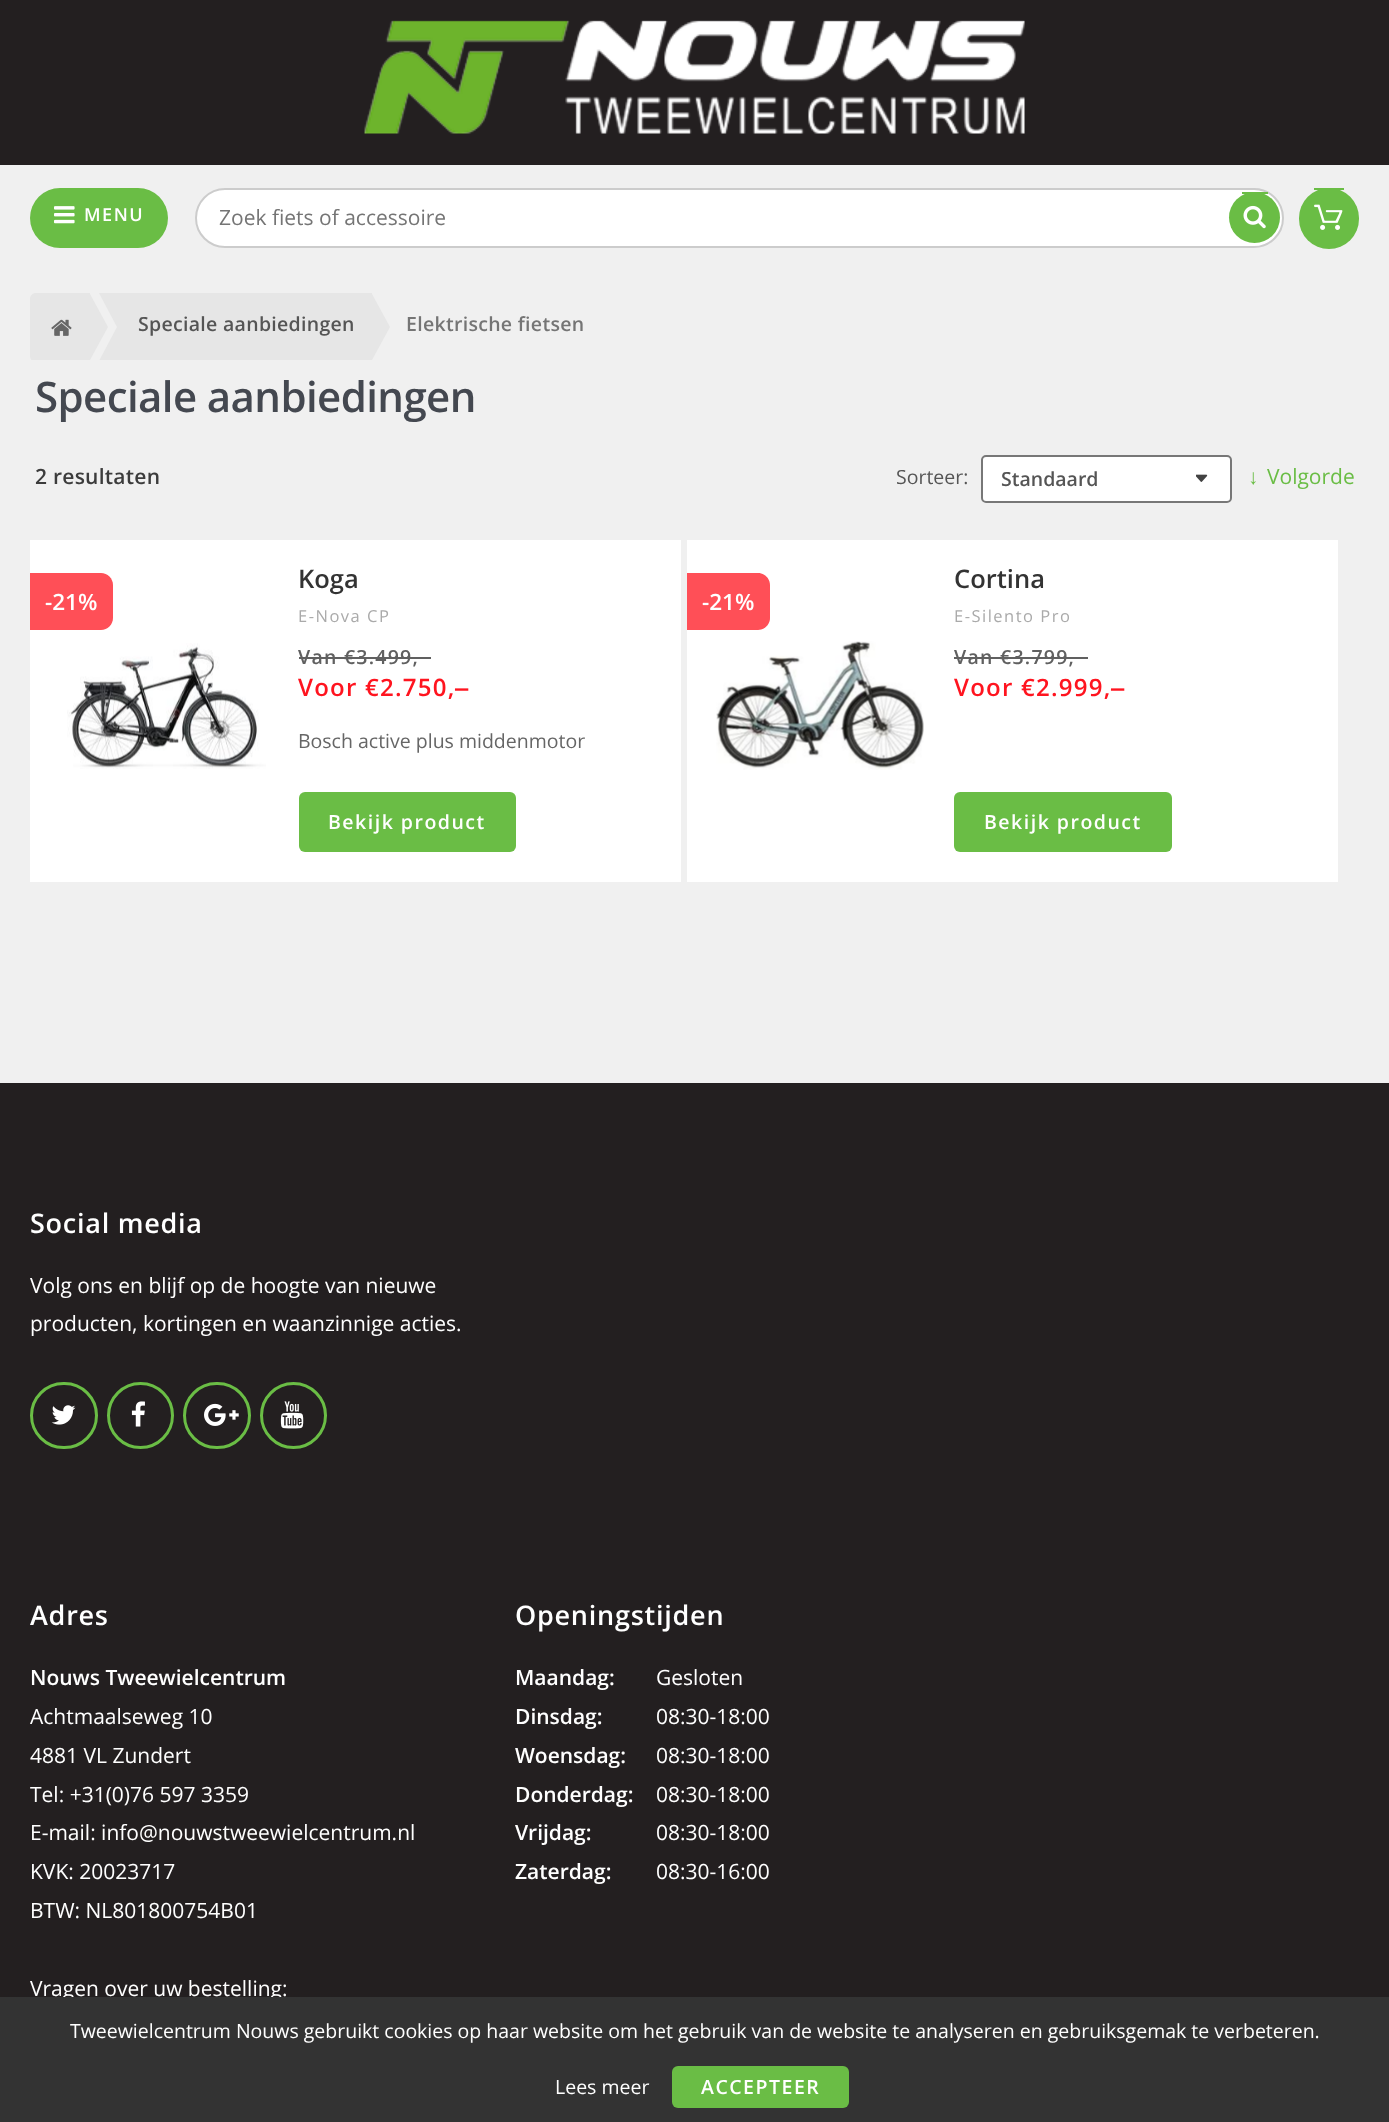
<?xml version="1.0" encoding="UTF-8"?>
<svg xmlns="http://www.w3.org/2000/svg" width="1389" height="2122">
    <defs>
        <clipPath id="clip1"><rect x="30" y="293" width="1329" height="67"/></clipPath>
    </defs>
    <rect width="100%" height="100%" fill="#F0F0F0"/>
    <rect x="0" y="0" width="1389" height="165" fill="#231F20"/>
    <image x="364" y="20" width="661" height="114" href="img_01.png"/>
    <rect x="30" y="188" width="138" height="60" rx="30" fill="#6ABD45"/>
    <image x="54" y="206" width="21" height="18" href="img_02.png"/>
    <text x="84" y="221" font-family="Open Sans" font-size="18" font-weight="600" letter-spacing="1.5" fill="#FFFFFF">MENU</text>
    <rect x="196" y="189" width="1087" height="58" rx="29" fill="#FFFFFF" stroke="#CCCCCC" stroke-width="2"/>
    <text x="219" y="225" font-family="Open Sans" font-size="21" fill="#757575">Zoek fiets of accessoire</text>
    <circle cx="1254.5" cy="217.5" r="25.5" fill="#6ABD45"/>
    <rect x="1242" y="192" width="26" height="2" fill="#6ABD45"/>
    <image x="1243" y="205" width="23" height="24" href="img_03.png"/>
    <rect x="1299" y="188" width="60" height="61" rx="30" fill="#6ABD45"/>
    <rect x="1314" y="188" width="30" height="2" fill="#6ABD45"/>
    <image x="1314" y="204" width="29" height="26" href="img_04.png"/>
    <g clip-path="url(#clip1)">
        <path d="M 36 293 H 90 V 362 H 36 C 32.5 362 30 359.5 30 356 V 299 C 30 295.5 32.5 293 36 293 Z" fill="#E6E6E6"/>
    </g>
    <rect x="99" y="293" width="273" height="67" fill="#E6E6E6"/>
    <g clip-path="url(#clip1)">
        <path d="M 90 378 V 276 L 117 327 Z" fill="#F0F0F0"/>
    </g>
    <path d="M 90 360 V 294 L 108 327 Z" fill="#E6E6E6"/>
    <text x="138" y="331" font-family="Open Sans" font-size="19.5" font-weight="600" letter-spacing="0.3" fill="#555555">Speciale aanbiedingen</text>
    <path d="M 372 360 V 294 L 390 327 Z" fill="#E6E6E6"/>
    <text x="406" y="331" font-family="Open Sans" font-size="19.5" font-weight="600" letter-spacing="0.3" fill="#757575">Elektrische fietsen</text>
    <image x="51" y="319" width="21" height="17" href="img_05.png"/>
    <text x="35" y="412" font-family="Open Sans" font-size="42" font-weight="600" letter-spacing="-0.6" fill="#444850">Speciale aanbiedingen</text>
    <text x="35" y="484" font-family="Open Sans" font-size="21" font-weight="600" letter-spacing="0.25" fill="#3C3C3C">2 resultaten</text>
    <text x="896" y="484" font-family="Open Sans" font-size="19.5" fill="#555555">Sorteer:</text>
    <rect x="981" y="455" width="251" height="48" rx="5" fill="#FFFFFF"/>
    <image x="1196" y="474" width="12" height="8" href="img_06.png"/>
    <rect x="982" y="456" width="249" height="46" rx="4" fill="none" stroke="#777777" stroke-width="2"/>
    <text x="1001" y="486" font-family="Open Sans" font-size="19.5" font-weight="600" fill="#555555">Standaard</text>
    <text x="1248" y="484" font-family="Liberation Sans" font-size="21" font-weight="700" fill="#6ABD45">↓</text>
    <text x="1267" y="484" font-family="Open Sans" font-size="21" fill="#6ABD45">Volgorde</text>
    <rect x="30" y="540" width="651" height="342" fill="#FFFFFF"/>
    <text x="298" y="588" font-family="Open Sans" font-size="25.5" font-weight="600" fill="#333333">Koga</text>
    <path d="M 30 573 H 101 C 107.5 573 113 578.5 113 585 V 618 C 113 624.5 107.5 630 101 630 H 30 Z" fill="#FF4F57"/>
    <text x="45" y="610" font-family="Open Sans" font-size="22.5" font-weight="600" fill="#FFFFFF">-21%</text>
    <text x="298" y="664" font-family="Open Sans" font-size="19.5" font-weight="600" letter-spacing="1.25" fill="#606060">Van €3.499,</text>
    <rect x="299" y="657" width="132" height="2" fill="#606060"/>
    <text x="298" y="696" font-family="Open Sans" font-size="24" font-weight="600" letter-spacing="1.25" fill="#FF141F">Voor €2.750,</text>
    <text x="455" y="696" font-family="Liberation Sans" font-size="24" font-weight="700" letter-spacing="1.25" fill="#FF141F">‒</text>
    <text x="298" y="622" font-family="Open Sans" font-size="16.5" letter-spacing="1.5" fill="#AAAAAA">E-Nova CP</text>
    <text x="298" y="748" font-family="Open Sans" font-size="19.5" fill="#666666">Bosch active plus middenmotor</text>
    <rect x="299" y="792" width="217" height="60" rx="6" fill="#6ABD45"/>
    <text x="328" y="829" font-family="Open Sans" font-size="19.5" font-weight="600" letter-spacing="1.5" fill="#FFFFFF">Bekijk product</text>
    <image x="67" y="643" width="199" height="126" href="img_07.png"/>
    <rect x="687" y="540" width="651" height="342" fill="#FFFFFF"/>
    <text x="954" y="588" font-family="Open Sans" font-size="25.5" font-weight="600" fill="#333333">Cortina</text>
    <path d="M 687 573 H 758 C 764.5 573 770 578.5 770 585 V 618 C 770 624.5 764.5 630 758 630 H 687 Z" fill="#FF4F57"/>
    <text x="702" y="610" font-family="Open Sans" font-size="22.5" font-weight="600" fill="#FFFFFF">-21%</text>
    <text x="954" y="664" font-family="Open Sans" font-size="19.5" font-weight="600" letter-spacing="1.25" fill="#606060">Van</text>
    <rect x="954" y="657" width="47" height="2" fill="#606060"/>
    <text x="1000" y="664" font-family="Open Sans" font-size="19.5" font-weight="600" letter-spacing="1.25" fill="#606060">€3.799,</text>
    <rect x="1001" y="657" width="87" height="2" fill="#606060"/>
    <text x="954" y="696" font-family="Open Sans" font-size="24" font-weight="600" letter-spacing="1.25" fill="#FF141F">Voor €2.999,</text>
    <text x="1111" y="696" font-family="Liberation Sans" font-size="24" font-weight="700" letter-spacing="1.25" fill="#FF141F">‒</text>
    <text x="954" y="622" font-family="Open Sans" font-size="16.5" letter-spacing="1.5" fill="#AAAAAA">E-Silento Pro</text>
    <rect x="954" y="792" width="218" height="60" rx="6" fill="#6ABD45"/>
    <text x="984" y="829" font-family="Open Sans" font-size="19.5" font-weight="600" letter-spacing="1.5" fill="#FFFFFF">Bekijk product</text>
    <image x="716" y="641" width="208" height="129" href="img_08.png"/>
    <rect x="0" y="1083" width="1389" height="914" fill="#231F20"/>
    <text x="30" y="1233" font-family="Open Sans" font-size="27" font-weight="600" letter-spacing="0.75" fill="#FFFFFF">Social media</text>
    <text font-family="Open Sans" font-size="21" fill="#FFFFFF">
        <tspan x="30" y="1293">Volg ons en blijf op de hoogte van nieuwe</tspan>
        <tspan x="30" y="1331">producten, kortingen en waanzinnige acties.</tspan>
    </text>
    <rect x="31.5" y="1383.5" width="65" height="64" rx="32" fill="none" stroke="#6ABD45" stroke-width="3"/>
    <image x="51" y="1405" width="25" height="20" href="img_09.png"/>
    <circle cx="140.5" cy="1415.5" r="32" fill="none" stroke="#6ABD45" stroke-width="3"/>
    <image x="131" y="1401" width="14" height="26" href="img_10.png"/>
    <rect x="184.5" y="1383.5" width="65" height="64" rx="32" fill="none" stroke="#6ABD45" stroke-width="3"/>
    <image x="204" y="1403" width="35" height="23" href="img_11.png"/>
    <circle cx="293.5" cy="1415.5" r="32" fill="none" stroke="#6ABD45" stroke-width="3"/>
    <image x="280" y="1401" width="24" height="28" href="img_12.png"/>
    <text x="30" y="1625" font-family="Open Sans" font-size="27" font-weight="600" letter-spacing="0.75" fill="#FFFFFF">Adres</text>
    <text x="30" y="1685" font-family="Open Sans" font-size="21" font-weight="600" fill="#FFFFFF">Nouws Tweewielcentrum</text>
    <text font-family="Open Sans" font-size="21" fill="#FFFFFF">
        <tspan x="30" y="1724">Achtmaalseweg 10</tspan>
        <tspan x="30" y="1763">4881 VL Zundert</tspan>
        <tspan x="30" y="1802">Tel: +31(0)76 597 3359</tspan>
        <tspan x="30" y="1840">E-mail: info@nouwstweewielcentrum.nl</tspan>
        <tspan x="30" y="1879">KVK: 20023717</tspan>
        <tspan x="30" y="1918">BTW: NL801800754B01</tspan>
    </text>
    <text x="30" y="1996" font-family="Open Sans" font-size="21" fill="#FFFFFF">Vragen over uw bestelling:</text>
    <text x="515" y="1625" font-family="Open Sans" font-size="27" font-weight="600" letter-spacing="0.75" fill="#FFFFFF">Openingstijden</text>
    <text x="515" y="1685" font-family="Open Sans" font-size="21" font-weight="600" fill="#FFFFFF">Maandag:</text>
    <text x="656" y="1685" font-family="Open Sans" font-size="21" fill="#FFFFFF">Gesloten</text>
    <text x="515" y="1724" font-family="Open Sans" font-size="21" font-weight="600" fill="#FFFFFF">Dinsdag:</text>
    <text x="656" y="1724" font-family="Open Sans" font-size="21" fill="#FFFFFF">08:30-18:00</text>
    <text x="515" y="1763" font-family="Open Sans" font-size="21" font-weight="600" fill="#FFFFFF">Woensdag:</text>
    <text x="656" y="1763" font-family="Open Sans" font-size="21" fill="#FFFFFF">08:30-18:00</text>
    <text x="515" y="1802" font-family="Open Sans" font-size="21" font-weight="600" fill="#FFFFFF">Donderdag:</text>
    <text x="656" y="1802" font-family="Open Sans" font-size="21" fill="#FFFFFF">08:30-18:00</text>
    <text x="515" y="1840" font-family="Open Sans" font-size="21" font-weight="600" fill="#FFFFFF">Vrijdag:</text>
    <text x="656" y="1840" font-family="Open Sans" font-size="21" fill="#FFFFFF">08:30-18:00</text>
    <text x="515" y="1879" font-family="Open Sans" font-size="21" font-weight="600" fill="#FFFFFF">Zaterdag:</text>
    <text x="656" y="1879" font-family="Open Sans" font-size="21" fill="#FFFFFF">08:30-16:00</text>
    <rect x="0" y="1997" width="1389" height="125" fill="#333333"/>
    <text x="70" y="2038" font-family="Open Sans" font-size="19.5" fill="#FFFFFF">Tweewielcentrum Nouws gebruikt cookies op haar website om het gebruik van de website te analyseren en gebruiksgemak te verbeteren.</text>
    <text x="555" y="2094" font-family="Open Sans" font-size="19.5" fill="#FFFFFF">Lees meer</text>
    <rect x="672" y="2066" width="177" height="42" rx="6" fill="#6ABD45"/>
    <text x="701" y="2094" font-family="Open Sans" font-size="19.5" font-weight="600" letter-spacing="1.5" fill="#FFFFFF">ACCEPTEER</text>
</svg>
